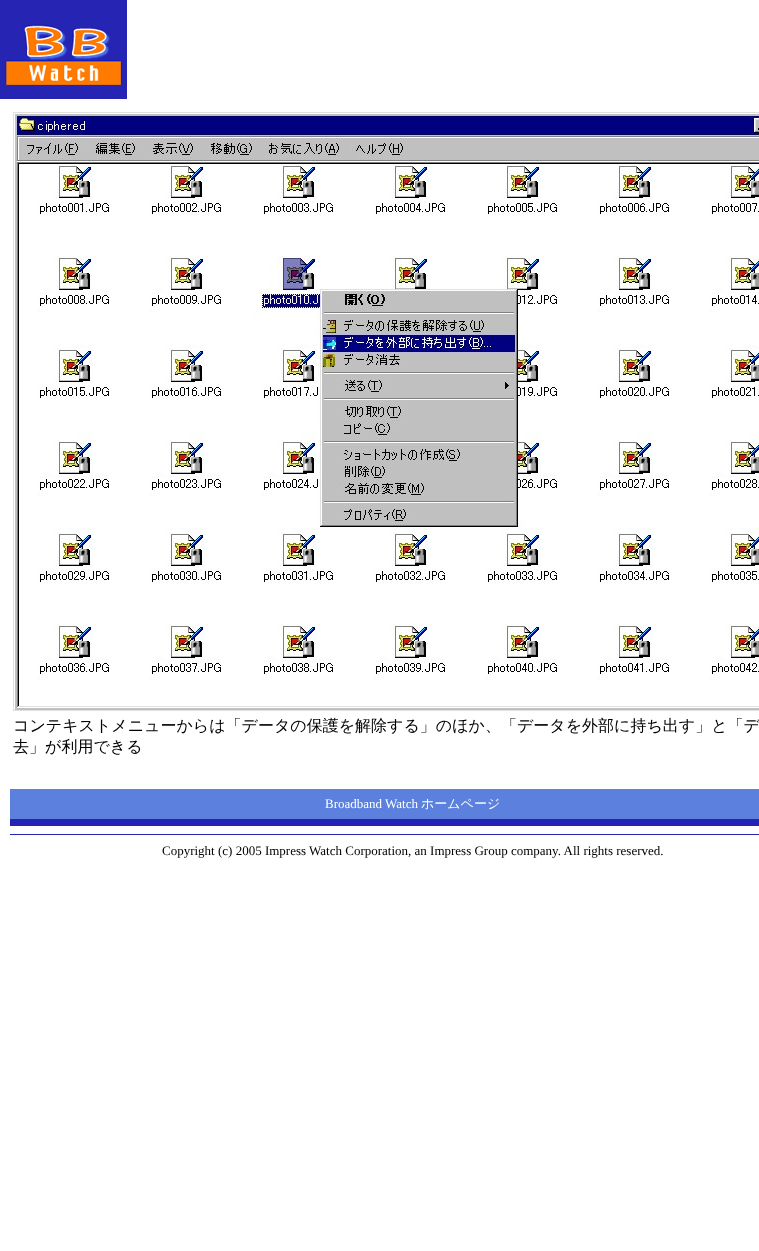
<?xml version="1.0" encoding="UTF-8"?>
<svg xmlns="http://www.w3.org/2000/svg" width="759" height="1251">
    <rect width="100%" height="100%" fill="#FFFFFF"/>
    <image x="0" y="0" width="127" height="99" href="img_01.png"/>
    <image x="13" y="112" width="746" height="599" href="img_02.png"/>
    <text font-family="WenQuanYi Zen Hei" font-size="16" font-weight="500" fill="#000000">
        <tspan x="13" y="731">コンテキストメニューからは「データの保護を解除する」のほか、「データを外部に持ち出す」と「デ</tspan>
        <tspan x="13" y="752">去」が利用できる</tspan>
    </text>
    <rect x="10" y="789" width="749" height="30" fill="#5B80DD"/>
    <text x="325" y="808" font-family="Liberation Serif" font-size="13" fill="#FFFFFF">Broadband Watch</text>
    <text x="421" y="808" font-family="WenQuanYi Zen Hei" font-size="13" font-weight="500" fill="#FFFFFF">ホームページ</text>
    <rect x="10" y="819" width="749" height="7" fill="#2624B3"/>
    <rect x="10" y="834" width="749" height="1" fill="#2624B3"/>
    <text x="162" y="855" font-family="Liberation Serif" font-size="13" fill="#000000">Copyright (c) 2005 Impress Watch Corporation, an Impress Group company. All rights reserved.</text>
</svg>
